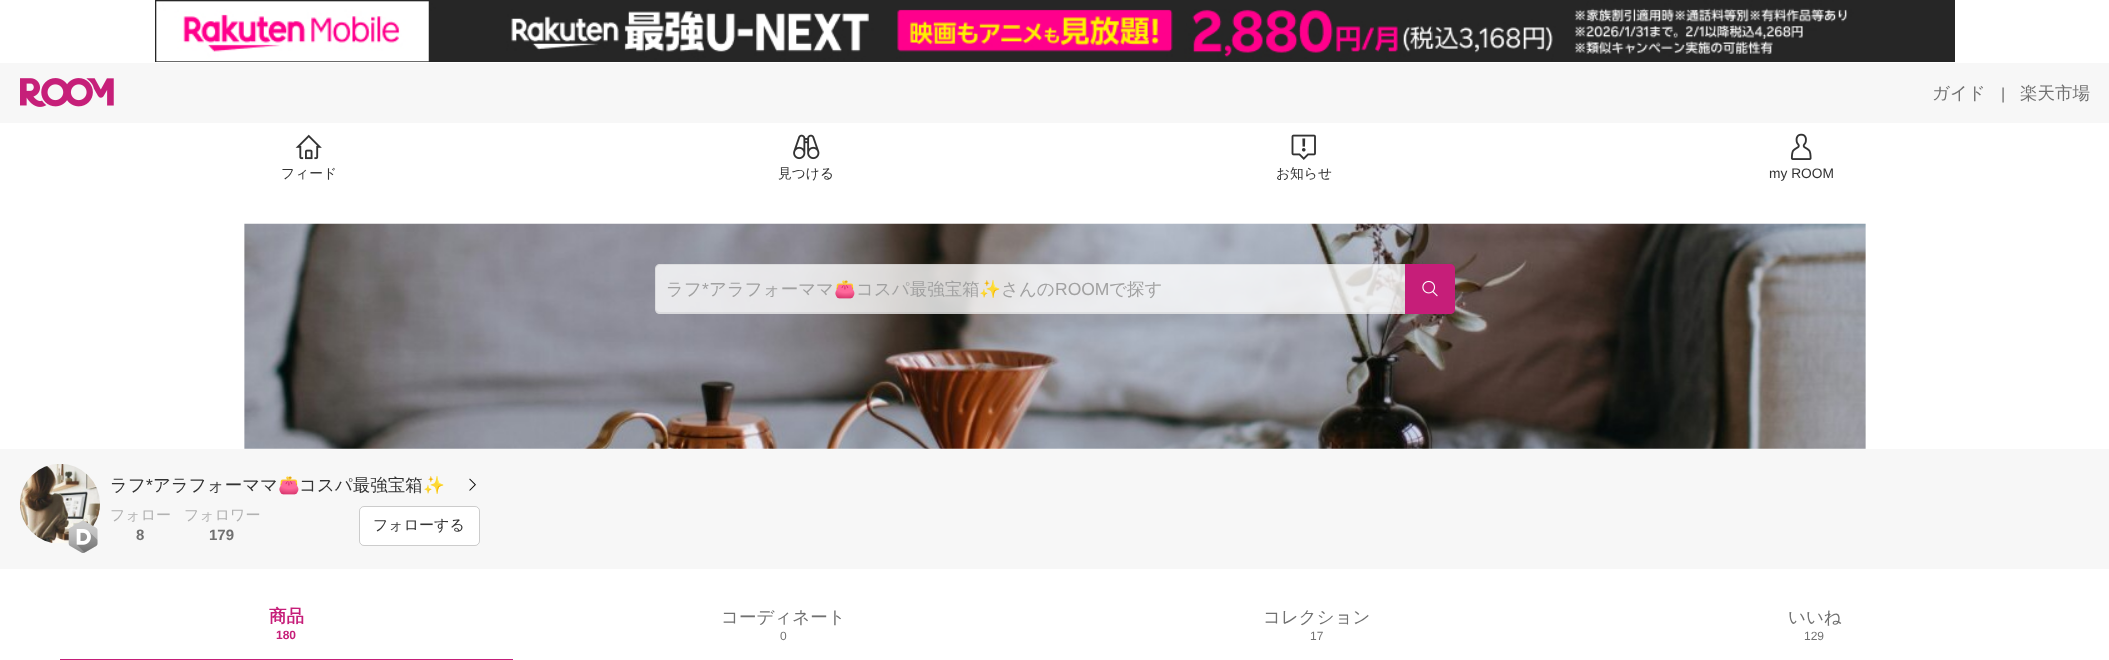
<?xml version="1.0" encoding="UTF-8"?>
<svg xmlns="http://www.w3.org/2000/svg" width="2109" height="660">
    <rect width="100%" height="100%" fill="#FFFFFF"/>
    <image x="155" y="0" width="1800" height="62" href="img_01.png"/>
    <rect x="0" y="63" width="2109" height="60" fill="#F7F7F7"/>
    <image x="20" y="78" width="94" height="29" href="img_02.png"/>
    <text x="1932" y="99" font-family="WenQuanYi Zen Hei" font-size="17.5" font-weight="500" fill="#717171">ガイド</text>
    <text x="2001" y="99" font-family="Liberation Sans" font-size="16" fill="#717171">|</text>
    <text x="2020" y="99" font-family="WenQuanYi Zen Hei" font-size="17.5" font-weight="500" fill="#717171">楽天市場</text>
    <image x="295" y="134" width="27" height="26" href="img_03.png"/>
    <text x="281" y="178" font-family="WenQuanYi Zen Hei" font-size="13.75" font-weight="500" fill="#333333">フィード</text>
    <image x="793" y="134" width="27" height="26" href="img_04.png"/>
    <text x="778" y="178" font-family="WenQuanYi Zen Hei" font-size="13.75" font-weight="500" fill="#333333">見つける</text>
    <image x="1291" y="134" width="25" height="26" href="img_05.png"/>
    <text x="1276" y="178" font-family="WenQuanYi Zen Hei" font-size="13.75" font-weight="500" fill="#333333">お知らせ</text>
    <image x="1790" y="133" width="22" height="27" href="img_06.png"/>
    <text x="1769" y="178" font-family="Liberation Sans" font-size="13.75" fill="#333333">my ROOM</text>
    <image x="244" y="223" width="1622" height="226" href="img_07.png"/>
    <path d="M 660 264 H 1405 V 314 H 660 C 657 314 655 312 655 309 V 269 C 655 266 657 264 660 264 Z" fill="#FFFFFF" fill-opacity="0.8"/>
    <path d="M 660 264 H 1405 V 314 H 660 C 657 314 655 312 655 309 V 269 C 655 266 657 264 660 264 Z M 660 265 H 1405 V 312 H 660 C 658 312 656 311 656 309 V 269 C 656 267 658 265 660 265 Z" fill="#000000" fill-opacity="0.06" fill-rule="evenodd"/>
    <text x="666" y="295" font-family="WenQuanYi Zen Hei" font-size="17.5" font-weight="500" fill="#A1A1A1">ラフ</text>
    <text x="702" y="295" font-family="Liberation Sans" font-size="17.5" fill="#A1A1A1">*</text>
    <text x="709" y="295" font-family="WenQuanYi Zen Hei" font-size="17.5" font-weight="500" fill="#A1A1A1">アラフォーママ</text>
    <text x="834" y="295" font-family="Noto Color Emoji" font-size="17.5" fill="#A1A1A1">👛</text>
    <text x="856" y="295" font-family="WenQuanYi Zen Hei" font-size="17.5" font-weight="500" fill="#A1A1A1">コスパ最強宝箱</text>
    <text x="979" y="295" font-family="Noto Color Emoji" font-size="17.5" fill="#A1A1A1">✨</text>
    <text x="1001" y="295" font-family="WenQuanYi Zen Hei" font-size="17.5" font-weight="500" fill="#A1A1A1">さんの</text>
    <text x="1055" y="295" font-family="Liberation Sans" font-size="17.5" fill="#A1A1A1">ROOM</text>
    <text x="1109" y="295" font-family="WenQuanYi Zen Hei" font-size="17.5" font-weight="500" fill="#A1A1A1">で探す</text>
    <path d="M 1405 264 H 1450 C 1453 264 1455 266 1455 269 V 309 C 1455 312 1453 314 1450 314 H 1405 Z" fill="#C61E79"/>
    <image x="1422" y="280" width="16" height="17" href="img_08.png"/>
    <rect x="0" y="449" width="2109" height="120" fill="#F7F7F7"/>
    <image x="20" y="464" width="80" height="79" href="img_09.png"/>
    <image x="68" y="520" width="30" height="33" href="img_10.png"/>
    <text x="110" y="491" font-family="WenQuanYi Zen Hei" font-size="17.5" font-weight="500" fill="#333333">ラフ</text>
    <text x="146" y="491" font-family="Liberation Sans" font-size="17.5" fill="#333333">*</text>
    <text x="153" y="491" font-family="WenQuanYi Zen Hei" font-size="17.5" font-weight="500" fill="#333333">アラフォーママ</text>
    <text x="278" y="491" font-family="Noto Color Emoji" font-size="17.5" fill="#333333">👛</text>
    <text x="299" y="491" font-family="WenQuanYi Zen Hei" font-size="17.5" font-weight="500" fill="#333333">コスパ最強宝箱</text>
    <text x="423" y="491" font-family="Noto Color Emoji" font-size="17.5" fill="#333333">✨</text>
    <image x="469" y="478" width="7" height="13" href="img_11.png"/>
    <text x="110" y="520" font-family="WenQuanYi Zen Hei" font-size="15" font-weight="500" fill="#B2B2B2">フォロー</text>
    <text x="136" y="540" font-family="Liberation Sans" font-size="15" font-weight="700" fill="#717171">8</text>
    <text x="184" y="520" font-family="WenQuanYi Zen Hei" font-size="15" font-weight="500" fill="#B2B2B2">フォロワー</text>
    <text x="209" y="540" font-family="Liberation Sans" font-size="15" font-weight="700" fill="#717171">179</text>
    <rect x="359" y="506" width="121" height="40" rx="5" fill="#FFFFFF"/>
    <rect x="359.5" y="506.5" width="120" height="39" rx="4.5" fill="none" stroke="#000000" stroke-opacity="0.2"/>
    <text x="373" y="530" font-family="WenQuanYi Zen Hei" font-size="15" font-weight="500" fill="#333333">フォローする</text>
    <rect x="60" y="659" width="453" height="1" fill="#C61E79"/>
    <text x="269" y="622" font-family="WenQuanYi Zen Hei" font-size="17.5" font-weight="700" fill="#C61E79">商品</text>
    <text x="276" y="639" font-family="Liberation Sans" font-size="12" font-weight="700" fill="#C61E79">180</text>
    <text x="721" y="623" font-family="WenQuanYi Zen Hei" font-size="17.5" font-weight="500" fill="#717171">コーディネート</text>
    <text x="780" y="640" font-family="Liberation Sans" font-size="12" fill="#717171">0</text>
    <text x="1263" y="623" font-family="WenQuanYi Zen Hei" font-size="17.5" font-weight="500" fill="#717171">コレクション</text>
    <text x="1310" y="640" font-family="Liberation Sans" font-size="12" fill="#717171">17</text>
    <text x="1788" y="623" font-family="WenQuanYi Zen Hei" font-size="17.5" font-weight="500" fill="#717171">いいね</text>
    <text x="1804" y="640" font-family="Liberation Sans" font-size="12" fill="#717171">129</text>
</svg>
